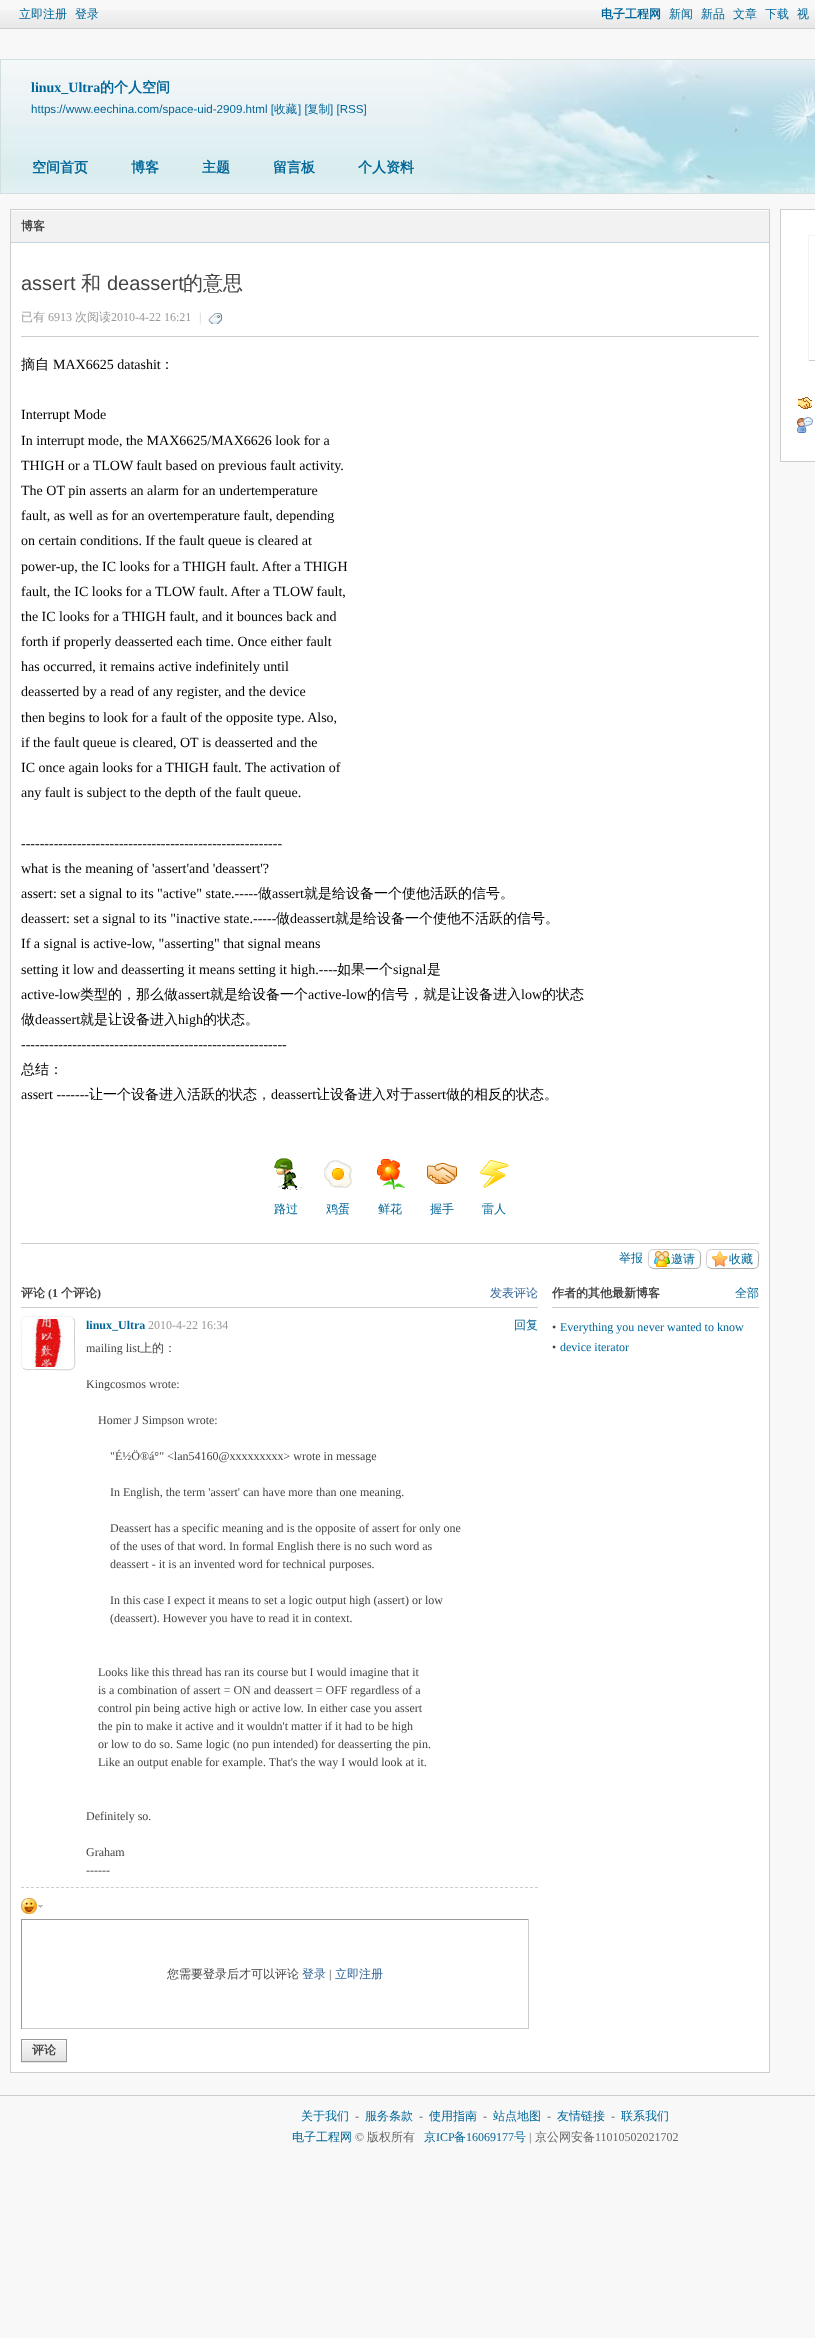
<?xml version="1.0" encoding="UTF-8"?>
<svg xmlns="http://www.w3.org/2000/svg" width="815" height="2338">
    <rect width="100%" height="100%" fill="#F8F8F8"/>
    <image x="0" y="10" width="815" height="18" href="img_01.png"/>
    <rect x="0" y="28" width="815" height="1" fill="#CDCDCD"/>
    <text x="19" y="18" font-family="WenQuanYi Zen Hei" font-size="12" font-weight="500" fill="#006699">立即注册</text>
    <text x="75" y="18" font-family="WenQuanYi Zen Hei" font-size="12" font-weight="500" fill="#006699">登录</text>
    <text x="601" y="18" font-family="WenQuanYi Zen Hei" font-size="12" font-weight="700" fill="#006699">电子工程网</text>
    <text x="669" y="18" font-family="WenQuanYi Zen Hei" font-size="12" font-weight="500" fill="#006699">新闻</text>
    <text x="701" y="18" font-family="WenQuanYi Zen Hei" font-size="12" font-weight="500" fill="#006699">新品</text>
    <text x="733" y="18" font-family="WenQuanYi Zen Hei" font-size="12" font-weight="500" fill="#006699">文章</text>
    <text x="765" y="18" font-family="WenQuanYi Zen Hei" font-size="12" font-weight="500" fill="#006699">下载</text>
    <text x="797" y="18" font-family="WenQuanYi Zen Hei" font-size="12" font-weight="500" fill="#006699">视</text>
    <image x="1" y="60" width="814" height="133" href="img_02.png"/>
    <rect x="0.5" y="59.5" width="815" height="134" fill="none" stroke="#D3DFDF"/>
    <text x="31" y="92" font-family="Liberation Serif" font-size="14" font-weight="700" fill="#006699">linux_Ultra</text>
    <text x="100" y="92" font-family="WenQuanYi Zen Hei" font-size="14" font-weight="700" fill="#006699">的个人空间</text>
    <text x="31" y="113" font-family="Liberation Sans" font-size="11.6" fill="#006699">https://www.eechina.com/space-uid-2909.html [</text>
    <text x="274" y="113" font-family="WenQuanYi Zen Hei" font-size="11.6" font-weight="500" fill="#006699">收藏</text>
    <text x="298" y="113" font-family="Liberation Sans" font-size="11.6" fill="#006699">] [</text>
    <text x="307" y="113" font-family="WenQuanYi Zen Hei" font-size="11.6" font-weight="500" fill="#006699">复制</text>
    <text x="330" y="113" font-family="Liberation Sans" font-size="11.6" fill="#006699">] [RSS]</text>
    <text x="32" y="172" font-family="WenQuanYi Zen Hei" font-size="14" font-weight="700" fill="#006699">空间首页</text>
    <text x="131" y="172" font-family="WenQuanYi Zen Hei" font-size="14" font-weight="700" fill="#006699">博客</text>
    <text x="202" y="172" font-family="WenQuanYi Zen Hei" font-size="14" font-weight="700" fill="#006699">主题</text>
    <text x="273" y="172" font-family="WenQuanYi Zen Hei" font-size="14" font-weight="700" fill="#006699">留言板</text>
    <text x="358" y="172" font-family="WenQuanYi Zen Hei" font-size="14" font-weight="700" fill="#006699">个人资料</text>
    <rect x="11" y="243" width="758" height="1829" fill="#FFFFFF"/>
    <rect x="10.5" y="209.5" width="759" height="1863" fill="none" stroke="#CDCDCD"/>
    <rect x="11" y="211" width="758" height="31" fill="#F2F2F2"/>
    <rect x="11" y="210" width="758" height="1" fill="#FFFFFF"/>
    <rect x="11" y="242" width="758" height="1" fill="#C2D5E3"/>
    <text x="21" y="230" font-family="WenQuanYi Zen Hei" font-size="12" font-weight="700" fill="#444444">博客</text>
    <rect x="21" y="336" width="738" height="1" fill="#CDCDCD"/>
    <text x="21" y="290" font-family="Liberation Sans" font-size="20" fill="#444444">assert</text>
    <text x="81" y="290" font-family="WenQuanYi Zen Hei" font-size="20" font-weight="500" fill="#444444">和</text>
    <text x="107" y="290" font-family="Liberation Sans" font-size="20" fill="#444444">deassert</text>
    <text x="183" y="290" font-family="WenQuanYi Zen Hei" font-size="20" font-weight="500" fill="#444444">的意思</text>
    <text x="21" y="321" font-family="WenQuanYi Zen Hei" font-size="12" font-weight="500" fill="#999999">已有</text>
    <text x="48" y="321" font-family="Liberation Serif" font-size="12" fill="#999999">6913</text>
    <text x="75" y="321" font-family="WenQuanYi Zen Hei" font-size="12" font-weight="500" fill="#999999">次阅读</text>
    <text x="111" y="321" font-family="Liberation Serif" font-size="12" fill="#999999">2010-4-22 16:21</text>
    <text x="199" y="321" font-family="Liberation Serif" font-size="12" fill="#CCCCCC">|</text>
    <image x="208" y="313" width="14" height="11" href="img_03.png"/>
    <text x="21" y="369" font-family="WenQuanYi Zen Hei" font-size="14" font-weight="500" fill="#000000">摘自</text>
    <text x="53" y="369" font-family="Liberation Serif" font-size="14" fill="#000000">MAX6625 datashit</text>
    <text x="160" y="369" font-family="WenQuanYi Zen Hei" font-size="14" font-weight="500" fill="#000000">：</text>
    <text font-family="Liberation Serif" font-size="14" fill="#000000">
        <tspan x="21" y="419">Interrupt Mode</tspan>
        <tspan x="21" y="445">In interrupt mode, the MAX6625/MAX6626 look for a</tspan>
        <tspan x="21" y="470">THIGH or a TLOW fault based on previous fault activity.</tspan>
        <tspan x="21" y="495">The OT pin asserts an alarm for an undertemperature</tspan>
        <tspan x="21" y="520">fault, as well as for an overtemperature fault, depending</tspan>
        <tspan x="21" y="545">on certain conditions. If the fault queue is cleared at</tspan>
        <tspan x="21" y="571">power-up, the IC looks for a THIGH fault. After a THIGH</tspan>
        <tspan x="21" y="596">fault, the IC looks for a TLOW fault. After a TLOW fault,</tspan>
        <tspan x="21" y="621">the IC looks for a THIGH fault, and it bounces back and</tspan>
        <tspan x="21" y="646">forth if properly deasserted each time. Once either fault</tspan>
        <tspan x="21" y="671">has occurred, it remains active indefinitely until</tspan>
        <tspan x="21" y="696">deasserted by a read of any register, and the device</tspan>
        <tspan x="21" y="722">then begins to look for a fault of the opposite type. Also,</tspan>
        <tspan x="21" y="747">if the fault queue is cleared, OT is deasserted and the</tspan>
        <tspan x="21" y="772">IC once again looks for a THIGH fault. The activation of</tspan>
        <tspan x="21" y="797">any fault is subject to the depth of the fault queue.</tspan>
    </text>
    <text font-family="Liberation Serif" font-size="14" fill="#000000">
        <tspan x="21" y="848">--------------------------------------------------------</tspan>
        <tspan x="21" y="873">what is the meaning of 'assert'and 'deassert'?</tspan>
        <tspan x="21" y="898">assert: set a signal to its "active" state.-----</tspan>
    </text>
    <text x="258" y="898" font-family="WenQuanYi Zen Hei" font-size="14" font-weight="500" fill="#000000">做</text>
    <text x="272" y="898" font-family="Liberation Serif" font-size="14" fill="#000000">assert</text>
    <text x="304" y="898" font-family="WenQuanYi Zen Hei" font-size="14" font-weight="500" fill="#000000">就是给设备一个使他活跃的信号。</text>
    <text x="21" y="923" font-family="Liberation Serif" font-size="14" fill="#000000">deassert: set a signal to its "inactive state.-----</text>
    <text x="276" y="923" font-family="WenQuanYi Zen Hei" font-size="14" font-weight="500" fill="#000000">做</text>
    <text x="290" y="923" font-family="Liberation Serif" font-size="14" fill="#000000">deassert</text>
    <text x="335" y="923" font-family="WenQuanYi Zen Hei" font-size="14" font-weight="500" fill="#000000">就是给设备一个使他不活跃的信号。</text>
    <text font-family="Liberation Serif" font-size="14" fill="#000000">
        <tspan x="21" y="948">If a signal is active-low, "asserting" that signal means</tspan>
        <tspan x="21" y="974">setting it low and deasserting it means setting it high.----</tspan>
    </text>
    <text x="337" y="974" font-family="WenQuanYi Zen Hei" font-size="14" font-weight="500" fill="#000000">如果一个</text>
    <text x="393" y="974" font-family="Liberation Serif" font-size="14" fill="#000000">signal</text>
    <text x="427" y="974" font-family="WenQuanYi Zen Hei" font-size="14" font-weight="500" fill="#000000">是</text>
    <text x="21" y="999" font-family="Liberation Serif" font-size="14" fill="#000000">active-low</text>
    <text x="80" y="999" font-family="WenQuanYi Zen Hei" font-size="14" font-weight="500" fill="#000000">类型的，那么做</text>
    <text x="178" y="999" font-family="Liberation Serif" font-size="14" fill="#000000">assert</text>
    <text x="210" y="999" font-family="WenQuanYi Zen Hei" font-size="14" font-weight="500" fill="#000000">就是给设备一个</text>
    <text x="308" y="999" font-family="Liberation Serif" font-size="14" fill="#000000">active-low</text>
    <text x="367" y="999" font-family="WenQuanYi Zen Hei" font-size="14" font-weight="500" fill="#000000">的信号，就是让设备进入</text>
    <text x="521" y="999" font-family="Liberation Serif" font-size="14" fill="#000000">low</text>
    <text x="542" y="999" font-family="WenQuanYi Zen Hei" font-size="14" font-weight="500" fill="#000000">的状态</text>
    <text x="21" y="1024" font-family="WenQuanYi Zen Hei" font-size="14" font-weight="500" fill="#000000">做</text>
    <text x="35" y="1024" font-family="Liberation Serif" font-size="14" fill="#000000">deassert</text>
    <text x="80" y="1024" font-family="WenQuanYi Zen Hei" font-size="14" font-weight="500" fill="#000000">就是让设备进入</text>
    <text x="178" y="1024" font-family="Liberation Serif" font-size="14" fill="#000000">high</text>
    <text x="203" y="1024" font-family="WenQuanYi Zen Hei" font-size="14" font-weight="500" fill="#000000">的状态。</text>
    <text x="21" y="1049" font-family="Liberation Serif" font-size="14" fill="#000000">---------------------------------------------------------</text>
    <text x="21" y="1074" font-family="WenQuanYi Zen Hei" font-size="14" font-weight="500" fill="#000000">总结：</text>
    <text x="21" y="1099" font-family="Liberation Serif" font-size="14" fill="#000000">assert -------</text>
    <text x="89" y="1099" font-family="WenQuanYi Zen Hei" font-size="14" font-weight="500" fill="#000000">让一个设备进入活跃的状态，</text>
    <text x="271" y="1099" font-family="Liberation Serif" font-size="14" fill="#000000">deassert</text>
    <text x="316" y="1099" font-family="WenQuanYi Zen Hei" font-size="14" font-weight="500" fill="#000000">让设备进入对于</text>
    <text x="414" y="1099" font-family="Liberation Serif" font-size="14" fill="#000000">assert</text>
    <text x="446" y="1099" font-family="WenQuanYi Zen Hei" font-size="14" font-weight="500" fill="#000000">做的相反的状态。</text>
    <image x="274" y="1158" width="28" height="32" href="img_04.png"/>
    <text x="274" y="1213" font-family="WenQuanYi Zen Hei" font-size="12" font-weight="500" fill="#006699">路过</text>
    <image x="324" y="1160" width="28" height="28" href="img_05.png"/>
    <text x="326" y="1213" font-family="WenQuanYi Zen Hei" font-size="12" font-weight="500" fill="#006699">鸡蛋</text>
    <image x="377" y="1159" width="28" height="31" href="img_06.png"/>
    <text x="378" y="1213" font-family="WenQuanYi Zen Hei" font-size="12" font-weight="500" fill="#006699">鲜花</text>
    <image x="427" y="1163" width="30" height="21" href="img_07.png"/>
    <text x="430" y="1213" font-family="WenQuanYi Zen Hei" font-size="12" font-weight="500" fill="#006699">握手</text>
    <image x="480" y="1160" width="29" height="28" href="img_08.png"/>
    <text x="482" y="1213" font-family="WenQuanYi Zen Hei" font-size="12" font-weight="500" fill="#006699">雷人</text>
    <rect x="21" y="1243" width="738" height="1" fill="#CDCDCD"/>
    <text x="619" y="1262" font-family="WenQuanYi Zen Hei" font-size="12" font-weight="500" fill="#006699">举报</text>
    <image x="654" y="1251" width="16" height="16" href="img_09.png"/>
    <path d="M 699 1251 C 701.5 1253 700.5 1256.5 700.5 1259 C 700.5 1269.5 699.5 1268.5 689 1268.5 H 660 C 658 1268.5 652.5 1269.5 650 1267" fill="none" stroke="#A9A9A9"/>
    <path d="M 650 1267 C 647.5 1265 648.5 1261.5 648.5 1259 C 648.5 1248.5 649.5 1249.5 660 1249.5 H 689 C 691 1249.5 696.5 1248.5 699 1251" fill="none" stroke="#CCCCCC"/>
    <text x="671" y="1263" font-family="WenQuanYi Zen Hei" font-size="12" font-weight="500" fill="#006699">邀请</text>
    <image x="712" y="1251" width="16" height="16" href="img_10.png"/>
    <path d="M 757 1251 C 759.5 1253 758.5 1256.5 758.5 1259 C 758.5 1269.5 757.5 1268.5 747 1268.5 H 718 C 716 1268.5 710.5 1269.5 708 1267" fill="none" stroke="#A9A9A9"/>
    <path d="M 708 1267 C 705.5 1265 706.5 1261.5 706.5 1259 C 706.5 1248.5 707.5 1249.5 718 1249.5 H 747 C 749 1249.5 754.5 1248.5 757 1251" fill="none" stroke="#CCCCCC"/>
    <text x="729" y="1263" font-family="WenQuanYi Zen Hei" font-size="12" font-weight="500" fill="#006699">收藏</text>
    <rect x="21" y="1307" width="517" height="1" fill="#CDCDCD"/>
    <text x="21" y="1297" font-family="WenQuanYi Zen Hei" font-size="12" font-weight="700" fill="#444444">评论</text>
    <text x="48" y="1297" font-family="Liberation Serif" font-size="12" font-weight="700" fill="#444444">(1</text>
    <text x="61" y="1297" font-family="WenQuanYi Zen Hei" font-size="12" font-weight="700" fill="#444444">个评论</text>
    <text x="97" y="1297" font-family="Liberation Serif" font-size="12" font-weight="700" fill="#444444">)</text>
    <text x="490" y="1297" font-family="WenQuanYi Zen Hei" font-size="12" font-weight="500" fill="#336699">发表评论</text>
    <path d="M 21 1887.5 H 538" fill="none" stroke="#CDCDCD" stroke-dasharray="3 1.99"/>
    <path d="M 73 1318 C 75.5 1320.5 74.5 1326 74.5 1328.5 V 1343 C 74.5 1375 80 1369.5 48 1369.5 H 33.5 C 31 1369.5 25.5 1370.5 23 1368" fill="none" stroke="#CDCDCD"/>
    <path d="M 23 1368 C 20.5 1365.5 21.5 1360 21.5 1357.5 V 1343 C 21.5 1311 16 1316.5 48 1316.5 H 62.5 C 65 1316.5 70.5 1315.5 73 1318" fill="none" stroke="#F2F2F2"/>
    <image x="32" y="1319" width="32" height="48" href="img_11.png"/>
    <text x="86" y="1329" font-family="Liberation Serif" font-size="12" font-weight="700" fill="#006699">linux_Ultra</text>
    <text x="148" y="1329" font-family="Liberation Serif" font-size="12" fill="#999999">2010-4-22 16:34</text>
    <text x="514" y="1329" font-family="WenQuanYi Zen Hei" font-size="12" font-weight="500" fill="#006699">回复</text>
    <text x="86" y="1352" font-family="Liberation Serif" font-size="12" fill="#444444">mailing list</text>
    <text x="140" y="1352" font-family="WenQuanYi Zen Hei" font-size="12" font-weight="500" fill="#444444">上的：</text>
    <text x="86" y="1388" font-family="Liberation Serif" font-size="12" fill="#444444">Kingcosmos wrote:</text>
    <text x="98" y="1424" font-family="Liberation Serif" font-size="12" fill="#444444">Homer J Simpson wrote:</text>
    <text x="110" y="1460" font-family="Liberation Serif" font-size="12" fill="#444444">"É½Ö®á°" &lt;lan54160@xxxxxxxxx&gt; wrote in message</text>
    <text x="110" y="1496" font-family="Liberation Serif" font-size="12" fill="#444444">In English, the term 'assert' can have more than one meaning.</text>
    <text font-family="Liberation Serif" font-size="12" fill="#444444">
        <tspan x="110" y="1532">Deassert has a specific meaning and is the opposite of assert for only one</tspan>
        <tspan x="110" y="1550">of the uses of that word. In formal English there is no such word as</tspan>
        <tspan x="110" y="1568">deassert - it is an invented word for technical purposes.</tspan>
    </text>
    <text font-family="Liberation Serif" font-size="12" fill="#444444">
        <tspan x="110" y="1604">In this case I expect it means to set a logic output high (assert) or low</tspan>
        <tspan x="110" y="1622">(deassert). However you have to read it in context.</tspan>
    </text>
    <text font-family="Liberation Serif" font-size="12" fill="#444444">
        <tspan x="98" y="1676">Looks like this thread has ran its course but I would imagine that it</tspan>
        <tspan x="98" y="1694">is a combination of assert = ON and deassert = OFF regardless of a</tspan>
        <tspan x="98" y="1712">control pin being active high or active low. In either case you assert</tspan>
        <tspan x="98" y="1730">the pin to make it active and it wouldn't matter if it had to be high</tspan>
        <tspan x="98" y="1748">or low to do so. Same logic (no pun intended) for deasserting the pin.</tspan>
        <tspan x="98" y="1766">Like an output enable for example. That's the way I would look at it.</tspan>
    </text>
    <text x="86" y="1820" font-family="Liberation Serif" font-size="12" fill="#444444">Definitely so.</text>
    <text font-family="Liberation Serif" font-size="12" fill="#444444">
        <tspan x="86" y="1856">Graham</tspan>
        <tspan x="86" y="1874">------</tspan>
    </text>
    <image x="21" y="1898" width="22" height="16" href="img_12.png"/>
    <rect x="21" y="1919" width="508" height="1" fill="#999999"/>
    <rect x="528" y="1919" width="1" height="110" fill="#CCCCCC"/>
    <rect x="21" y="2028" width="508" height="1" fill="#CCCCCC"/>
    <rect x="21" y="1919" width="1" height="110" fill="#999999"/>
    <text x="167" y="1978" font-family="WenQuanYi Zen Hei" font-size="12" font-weight="500" fill="#444444">您需要登录后才可以评论</text>
    <text x="302" y="1978" font-family="WenQuanYi Zen Hei" font-size="12" font-weight="500" fill="#336699">登录</text>
    <text x="329" y="1978" font-family="Liberation Serif" font-size="12" fill="#444444">|</text>
    <text x="335" y="1978" font-family="WenQuanYi Zen Hei" font-size="12" font-weight="500" fill="#336699">立即注册</text>
    <rect x="21" y="2062" width="46" height="1" fill="#E5E5E5"/>
    <image x="22" y="2040" width="44" height="21" href="img_13.png"/>
    <rect x="21.5" y="2039.5" width="45" height="22" fill="none" stroke="#999999"/>
    <text x="32" y="2054" font-family="WenQuanYi Zen Hei" font-size="12" font-weight="700" fill="#444444">评论</text>
    <rect x="552" y="1307" width="207" height="1" fill="#CDCDCD"/>
    <text x="552" y="1297" font-family="WenQuanYi Zen Hei" font-size="12" font-weight="700" fill="#444444">作者的其他最新博客</text>
    <text x="735" y="1297" font-family="WenQuanYi Zen Hei" font-size="12" font-weight="500" fill="#006699">全部</text>
    <text x="552" y="1331" font-family="Liberation Serif" font-size="12" fill="#444444">•</text>
    <text x="560" y="1331" font-family="Liberation Serif" font-size="12" fill="#006699">Everything you never wanted to know</text>
    <text x="552" y="1351" font-family="Liberation Serif" font-size="12" fill="#444444">•</text>
    <text x="560" y="1351" font-family="Liberation Serif" font-size="12" fill="#006699">device iterator</text>
    <rect x="780.5" y="209.5" width="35" height="252" fill="#FFFFFF" stroke="#CDCDCD"/>
    <rect x="808" y="235" width="7" height="1" fill="#F2F2F2"/>
    <rect x="808" y="360" width="7" height="1" fill="#CDCDCD"/>
    <rect x="808" y="235" width="1" height="126" fill="#F2F2F2"/>
    <image x="798" y="397" width="14" height="12" href="img_14.png"/>
    <image x="797" y="417" width="16" height="16" href="img_15.png"/>
    <rect x="0" y="2095" width="815" height="1" fill="#CCCCCC"/>
    <text x="301" y="2120" font-family="WenQuanYi Zen Hei" font-size="12" font-weight="500" fill="#006699">关于我们</text>
    <text x="355" y="2120" font-family="Liberation Serif" font-size="12" fill="#666666">-</text>
    <text x="365" y="2120" font-family="WenQuanYi Zen Hei" font-size="12" font-weight="500" fill="#006699">服务条款</text>
    <text x="419" y="2120" font-family="Liberation Serif" font-size="12" fill="#666666">-</text>
    <text x="429" y="2120" font-family="WenQuanYi Zen Hei" font-size="12" font-weight="500" fill="#006699">使用指南</text>
    <text x="483" y="2120" font-family="Liberation Serif" font-size="12" fill="#666666">-</text>
    <text x="493" y="2120" font-family="WenQuanYi Zen Hei" font-size="12" font-weight="500" fill="#006699">站点地图</text>
    <text x="547" y="2120" font-family="Liberation Serif" font-size="12" fill="#666666">-</text>
    <text x="557" y="2120" font-family="WenQuanYi Zen Hei" font-size="12" font-weight="500" fill="#006699">友情链接</text>
    <text x="611" y="2120" font-family="Liberation Serif" font-size="12" fill="#666666">-</text>
    <text x="621" y="2120" font-family="WenQuanYi Zen Hei" font-size="12" font-weight="500" fill="#006699">联系我们</text>
    <text x="292" y="2141" font-family="WenQuanYi Zen Hei" font-size="12" font-weight="500" fill="#006699">电子工程网</text>
    <text x="355" y="2141" font-family="Liberation Serif" font-size="12" fill="#666666">©</text>
    <text x="367" y="2141" font-family="WenQuanYi Zen Hei" font-size="12" font-weight="500" fill="#666666">版权所有</text>
    <text x="424" y="2141" font-family="WenQuanYi Zen Hei" font-size="12" font-weight="500" fill="#006699">京</text>
    <text x="436" y="2141" font-family="Liberation Serif" font-size="12" fill="#006699">ICP</text>
    <text x="454" y="2141" font-family="WenQuanYi Zen Hei" font-size="12" font-weight="500" fill="#006699">备</text>
    <text x="466" y="2141" font-family="Liberation Serif" font-size="12" fill="#006699">16069177</text>
    <text x="514" y="2141" font-family="WenQuanYi Zen Hei" font-size="12" font-weight="500" fill="#006699">号</text>
    <text x="529" y="2141" font-family="Liberation Serif" font-size="12" fill="#666666">|</text>
    <text x="535" y="2141" font-family="WenQuanYi Zen Hei" font-size="12" font-weight="500" fill="#666666">京公网安备</text>
    <text x="595" y="2141" font-family="Liberation Serif" font-size="12" fill="#666666">11010502021702</text>
</svg>
